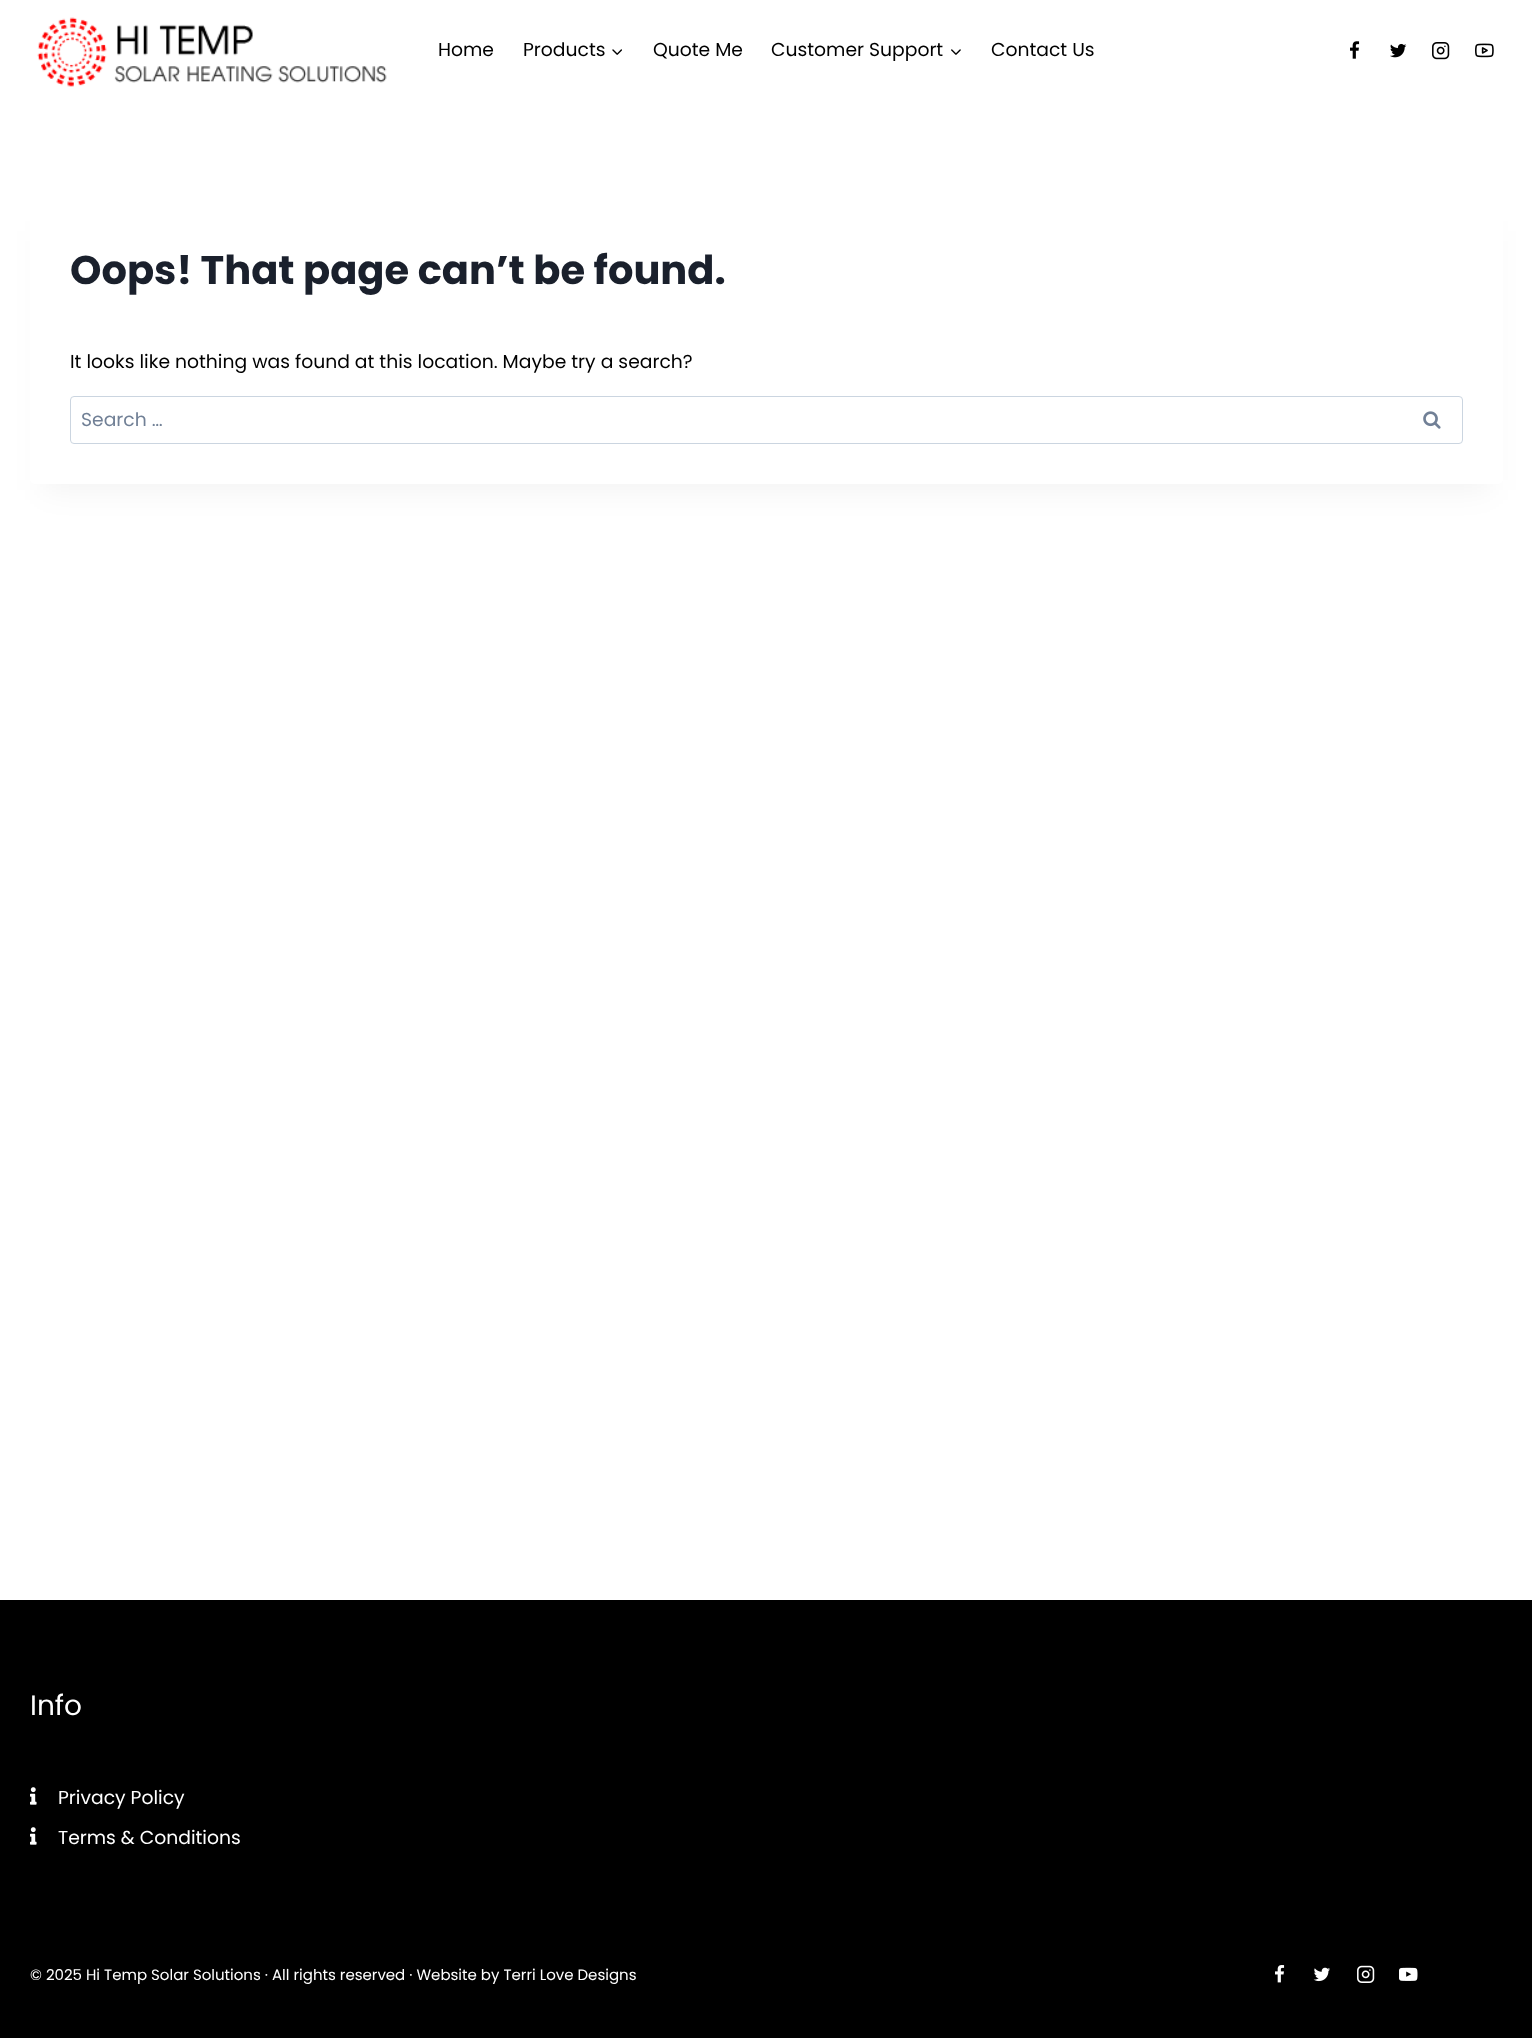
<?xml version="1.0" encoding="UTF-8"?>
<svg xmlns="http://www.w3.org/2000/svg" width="1532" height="2038">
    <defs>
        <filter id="blur1" x="-50%" y="-200%" width="200%" height="500%"><feGaussianBlur stdDeviation="15.5"/></filter>
    </defs>
    <rect width="100%" height="100%" fill="#FFFFFF"/>
    <image x="37" y="17" width="350" height="70" href="img_01.png"/>
    <text x="438" y="56" font-family="Poppins" font-size="18.75" fill="#000000">Home</text>
    <text x="523" y="56" font-family="Poppins" font-size="18.75" fill="#000000">Products</text>
    <image x="612" y="49" width="10" height="6" href="img_02.png"/>
    <text x="653" y="56" font-family="Poppins" font-size="18.75" fill="#000000">Quote Me</text>
    <text x="771" y="56" font-family="Poppins" font-size="18.75" fill="#000000">Customer Support</text>
    <image x="951" y="49" width="10" height="6" href="img_03.png"/>
    <text x="991" y="56" font-family="Poppins" font-size="18.75" fill="#000000">Contact Us</text>
    <image x="1350" y="41" width="10" height="18" href="img_04.png"/>
    <image x="1390" y="43" width="17" height="15" href="img_05.png"/>
    <image x="1432" y="42" width="18" height="18" href="img_06.png"/>
    <image x="1475" y="43" width="19" height="15" href="img_07.png"/>
    <rect x="43" y="231" width="1447" height="259" fill="#000000" fill-opacity="0.05" filter="url(#blur1)"/>
    <rect x="30" y="200" width="1473" height="284" rx="5" fill="#FFFFFF"/>
    <text x="70" y="284" font-family="Poppins" font-size="40" font-weight="700" fill="#1A202C">Oops! That page can’t be found.</text>
    <text x="70" y="368" font-family="Poppins" font-size="18.75" fill="#000000">It looks like nothing was found at this location. Maybe try a search?</text>
    <rect x="70.5" y="396.5" width="1392" height="47" rx="3.5" fill="none" stroke="#CBD5E0"/>
    <text x="81" y="426" font-family="Poppins" font-size="18.75" fill="#718096">Search …</text>
    <image x="1423" y="411" width="18" height="18" href="img_08.png"/>
    <rect x="0" y="1600" width="1532" height="438" fill="#000000"/>
    <text x="30" y="1715" font-family="Poppins" font-size="28" fill="#FFFFFF">Info</text>
    <image x="30" y="1787" width="7" height="18" href="img_09.png"/>
    <text x="58" y="1804" font-family="Poppins" font-size="18.75" fill="#FFFFFF">Privacy Policy</text>
    <image x="30" y="1827" width="7" height="18" href="img_09.png"/>
    <text x="58" y="1844" font-family="Poppins" font-size="18.75" fill="#FFFFFF">Terms &amp; Conditions</text>
    <text x="30" y="1980" font-family="Poppins" font-size="15" fill="#FFFFFF">© 2025 Hi Temp Solar Solutions · All rights reserved · Website by Terri Love Designs</text>
    <image x="1275" y="1965" width="10" height="18" href="img_10.png"/>
    <image x="1313" y="1967" width="17" height="15" href="img_11.png"/>
    <image x="1357" y="1965" width="18" height="18" href="img_12.png"/>
    <image x="1399" y="1967" width="19" height="14" href="img_13.png"/>
</svg>
